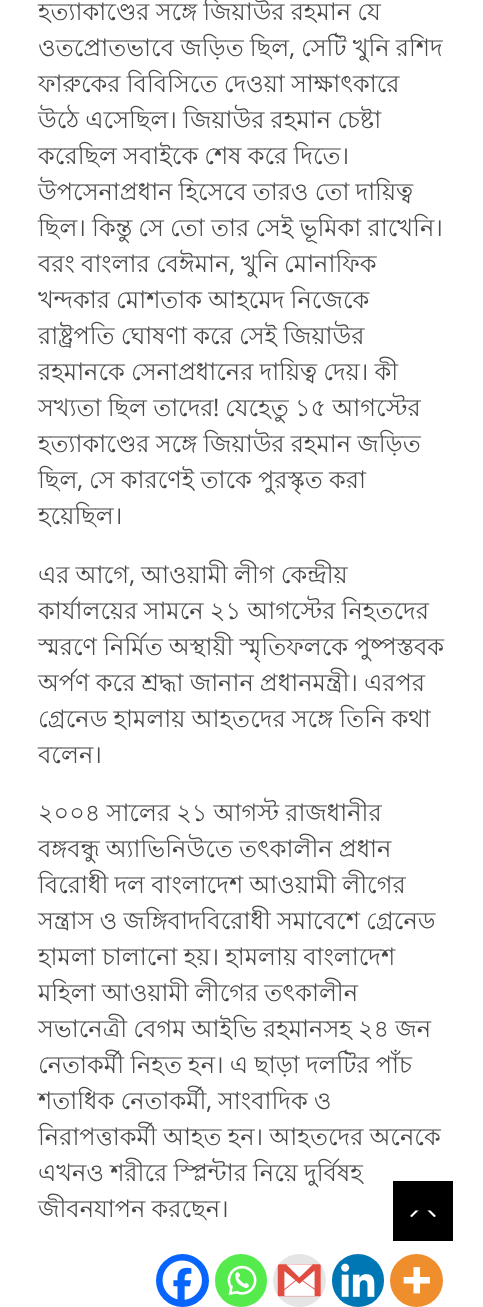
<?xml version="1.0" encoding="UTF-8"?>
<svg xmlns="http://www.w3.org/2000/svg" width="483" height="1307">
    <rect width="100%" height="100%" fill="#FFFFFF"/>
    <text font-family="Lohit Bengali" font-size="24" fill="#4A4A4A">
        <tspan x="38" y="20" word-spacing="-0.5">হত্যাকাণ্ডের সঙ্গে জিয়াউর রহমান যে</tspan>
        <tspan x="38" y="56" word-spacing="-0.5">ওতপ্রোতভাবে জড়িত ছিল</tspan>
    </text>
    <text x="289" y="56" font-family="Open Sans" font-size="24" fill="#4A4A4A">,</text>
    <text x="301" y="56" word-spacing="-0.5" font-family="Lohit Bengali" font-size="24" fill="#4A4A4A">সেটি খুনি রশিদ</text>
    <text font-family="Lohit Bengali" font-size="24" fill="#4A4A4A">
        <tspan x="38" y="92" word-spacing="-0.5">ফারুকের বিবিসিতে দেওয়া সাক্ষাৎকারে</tspan>
        <tspan x="38" y="128" word-spacing="-0.5">উঠে এসেছিল। জিয়াউর রহমান চেষ্টা</tspan>
        <tspan x="38" y="164" word-spacing="-0.5">করেছিল সবাইকে শেষ করে দিতে।</tspan>
        <tspan x="38" y="200" word-spacing="-0.5">উপসেনাপ্রধান হিসেবে তারও তো দায়িত্ব</tspan>
        <tspan x="38" y="236" word-spacing="-0.5">ছিল। কিন্তু সে তো তার সেই ভূমিকা রাখেনি।</tspan>
        <tspan x="38" y="272" word-spacing="-0.5">বরং বাংলার বেঈমান</tspan>
    </text>
    <text x="229" y="272" font-family="Open Sans" font-size="24" fill="#4A4A4A">,</text>
    <text x="241" y="272" word-spacing="-0.5" font-family="Lohit Bengali" font-size="24" fill="#4A4A4A">খুনি মোনাফিক</text>
    <text font-family="Lohit Bengali" font-size="24" fill="#4A4A4A">
        <tspan x="38" y="308" word-spacing="-0.5">খন্দকার মোশতাক আহমেদ নিজেকে</tspan>
        <tspan x="38" y="344" word-spacing="-0.5">রাষ্ট্রপতি ঘোষণা করে সেই জিয়াউর</tspan>
        <tspan x="38" y="380" word-spacing="-0.5">রহমানকে সেনাপ্রধানের দায়িত্ব দেয়। কী</tspan>
        <tspan x="38" y="416" word-spacing="-0.5">সখ্যতা ছিল তাদের</tspan>
    </text>
    <text x="213" y="416" font-family="Open Sans" font-size="24" fill="#4A4A4A">!</text>
    <text x="225" y="416" word-spacing="-0.5" font-family="Lohit Bengali" font-size="24" fill="#4A4A4A">যেহেতু ১৫ আগস্টের</text>
    <text font-family="Lohit Bengali" font-size="24" fill="#4A4A4A">
        <tspan x="38" y="452" word-spacing="-0.5">হত্যাকাণ্ডের সঙ্গে জিয়াউর রহমান জড়িত</tspan>
        <tspan x="38" y="488">ছিল</tspan>
    </text>
    <text x="77" y="488" font-family="Open Sans" font-size="24" fill="#4A4A4A">,</text>
    <text x="89" y="488" word-spacing="-0.5" font-family="Lohit Bengali" font-size="24" fill="#4A4A4A">সে কারণেই তাকে পুরস্কৃত করা</text>
    <text x="38" y="524" font-family="Lohit Bengali" font-size="24" fill="#4A4A4A">হয়েছিল।</text>
    <text x="38" y="583" word-spacing="-0.5" font-family="Lohit Bengali" font-size="24" fill="#4A4A4A">এর আগে</text>
    <text x="129" y="583" font-family="Open Sans" font-size="24" fill="#4A4A4A">,</text>
    <text x="141" y="583" word-spacing="-0.5" font-family="Lohit Bengali" font-size="24" fill="#4A4A4A">আওয়ামী লীগ কেন্দ্রীয়</text>
    <text font-family="Lohit Bengali" font-size="24" fill="#4A4A4A">
        <tspan x="38" y="619" word-spacing="-0.5">কার্যালয়ের সামনে ২১ আগস্টের নিহতদের</tspan>
        <tspan x="38" y="655" word-spacing="-0.5">স্মরণে নির্মিত অস্থায়ী স্মৃতিফলকে পুষ্পস্তবক</tspan>
        <tspan x="38" y="691" word-spacing="-0.5">অর্পণ করে শ্রদ্ধা জানান প্রধানমন্ত্রী। এরপর</tspan>
        <tspan x="38" y="727" word-spacing="-0.5">গ্রেনেড হামলায় আহতদের সঙ্গে তিনি কথা</tspan>
        <tspan x="38" y="763">বলেন।</tspan>
    </text>
    <text font-family="Lohit Bengali" font-size="24" fill="#4A4A4A">
        <tspan x="38" y="821" word-spacing="-0.5">২০০৪ সালের ২১ আগস্ট রাজধানীর</tspan>
        <tspan x="38" y="857" word-spacing="-0.5">বঙ্গবন্ধু অ্যাভিনিউতে তৎকালীন প্রধান</tspan>
        <tspan x="38" y="893" word-spacing="-0.5">বিরোধী দল বাংলাদেশ আওয়ামী লীগের</tspan>
        <tspan x="38" y="929" word-spacing="-0.5">সন্ত্রাস ও জঙ্গিবাদবিরোধী সমাবেশে গ্রেনেড</tspan>
        <tspan x="38" y="965" word-spacing="-0.5">হামলা চালানো হয়। হামলায় বাংলাদেশ</tspan>
        <tspan x="38" y="1001" word-spacing="-0.5">মহিলা আওয়ামী লীগের তৎকালীন</tspan>
        <tspan x="38" y="1037" word-spacing="-0.5">সভানেত্রী বেগম আইভি রহমানসহ ২৪ জন</tspan>
        <tspan x="38" y="1073" word-spacing="-0.5">নেতাকর্মী নিহত হন। এ ছাড়া দলটির পাঁচ</tspan>
        <tspan x="38" y="1109" word-spacing="-0.5">শতাধিক নেতাকর্মী</tspan>
    </text>
    <text x="206" y="1109" font-family="Open Sans" font-size="24" fill="#4A4A4A">,</text>
    <text x="218" y="1109" word-spacing="-0.5" font-family="Lohit Bengali" font-size="24" fill="#4A4A4A">সাংবাদিক ও</text>
    <text font-family="Lohit Bengali" font-size="24" fill="#4A4A4A">
        <tspan x="38" y="1145" word-spacing="-0.5">নিরাপত্তাকর্মী আহত হন। আহতদের অনেকে</tspan>
        <tspan x="38" y="1181" word-spacing="-0.5">এখনও শরীরে স্প্লিন্টার নিয়ে দুর্বিষহ</tspan>
        <tspan x="38" y="1217" word-spacing="-0.5">জীবনযাপন করছেন।</tspan>
    </text>
    <circle cx="182.5" cy="1280.5" r="26.5" fill="#0765FE"/>
    <image x="162" y="1260" width="40" height="40" href="img_01.png"/>
    <rect x="215" y="1254" width="52" height="53" rx="26" fill="#55EB4C"/>
    <image x="227" y="1265" width="30" height="30" href="img_02.png"/>
    <circle cx="299.5" cy="1280.5" r="26.5" fill="#E5E5E5"/>
    <image x="277" y="1264" width="44" height="33" href="img_03.png"/>
    <rect x="332" y="1254" width="52" height="53" rx="26" fill="#0077B5"/>
    <image x="341" y="1263" width="34" height="34" href="img_04.png"/>
    <circle cx="416.5" cy="1280.5" r="26.5" fill="#EE8E2D"/>
    <image x="403" y="1267" width="27" height="27" href="img_05.png"/>
    <rect x="393" y="1181" width="60" height="60" fill="#000000"/>
    <path d="M 415.5 1218 H 430.5 C 432.5 1218 434.5 1217 436 1216 L 430.5 1210.5 H 415.5 L 410 1216 C 411.5 1217 413.5 1218 415.5 1218 Z" fill="#FFFFFF"/>
    <path d="M 438 1221 H 408 L 423 1206 Z" fill="#000000"/>
</svg>
